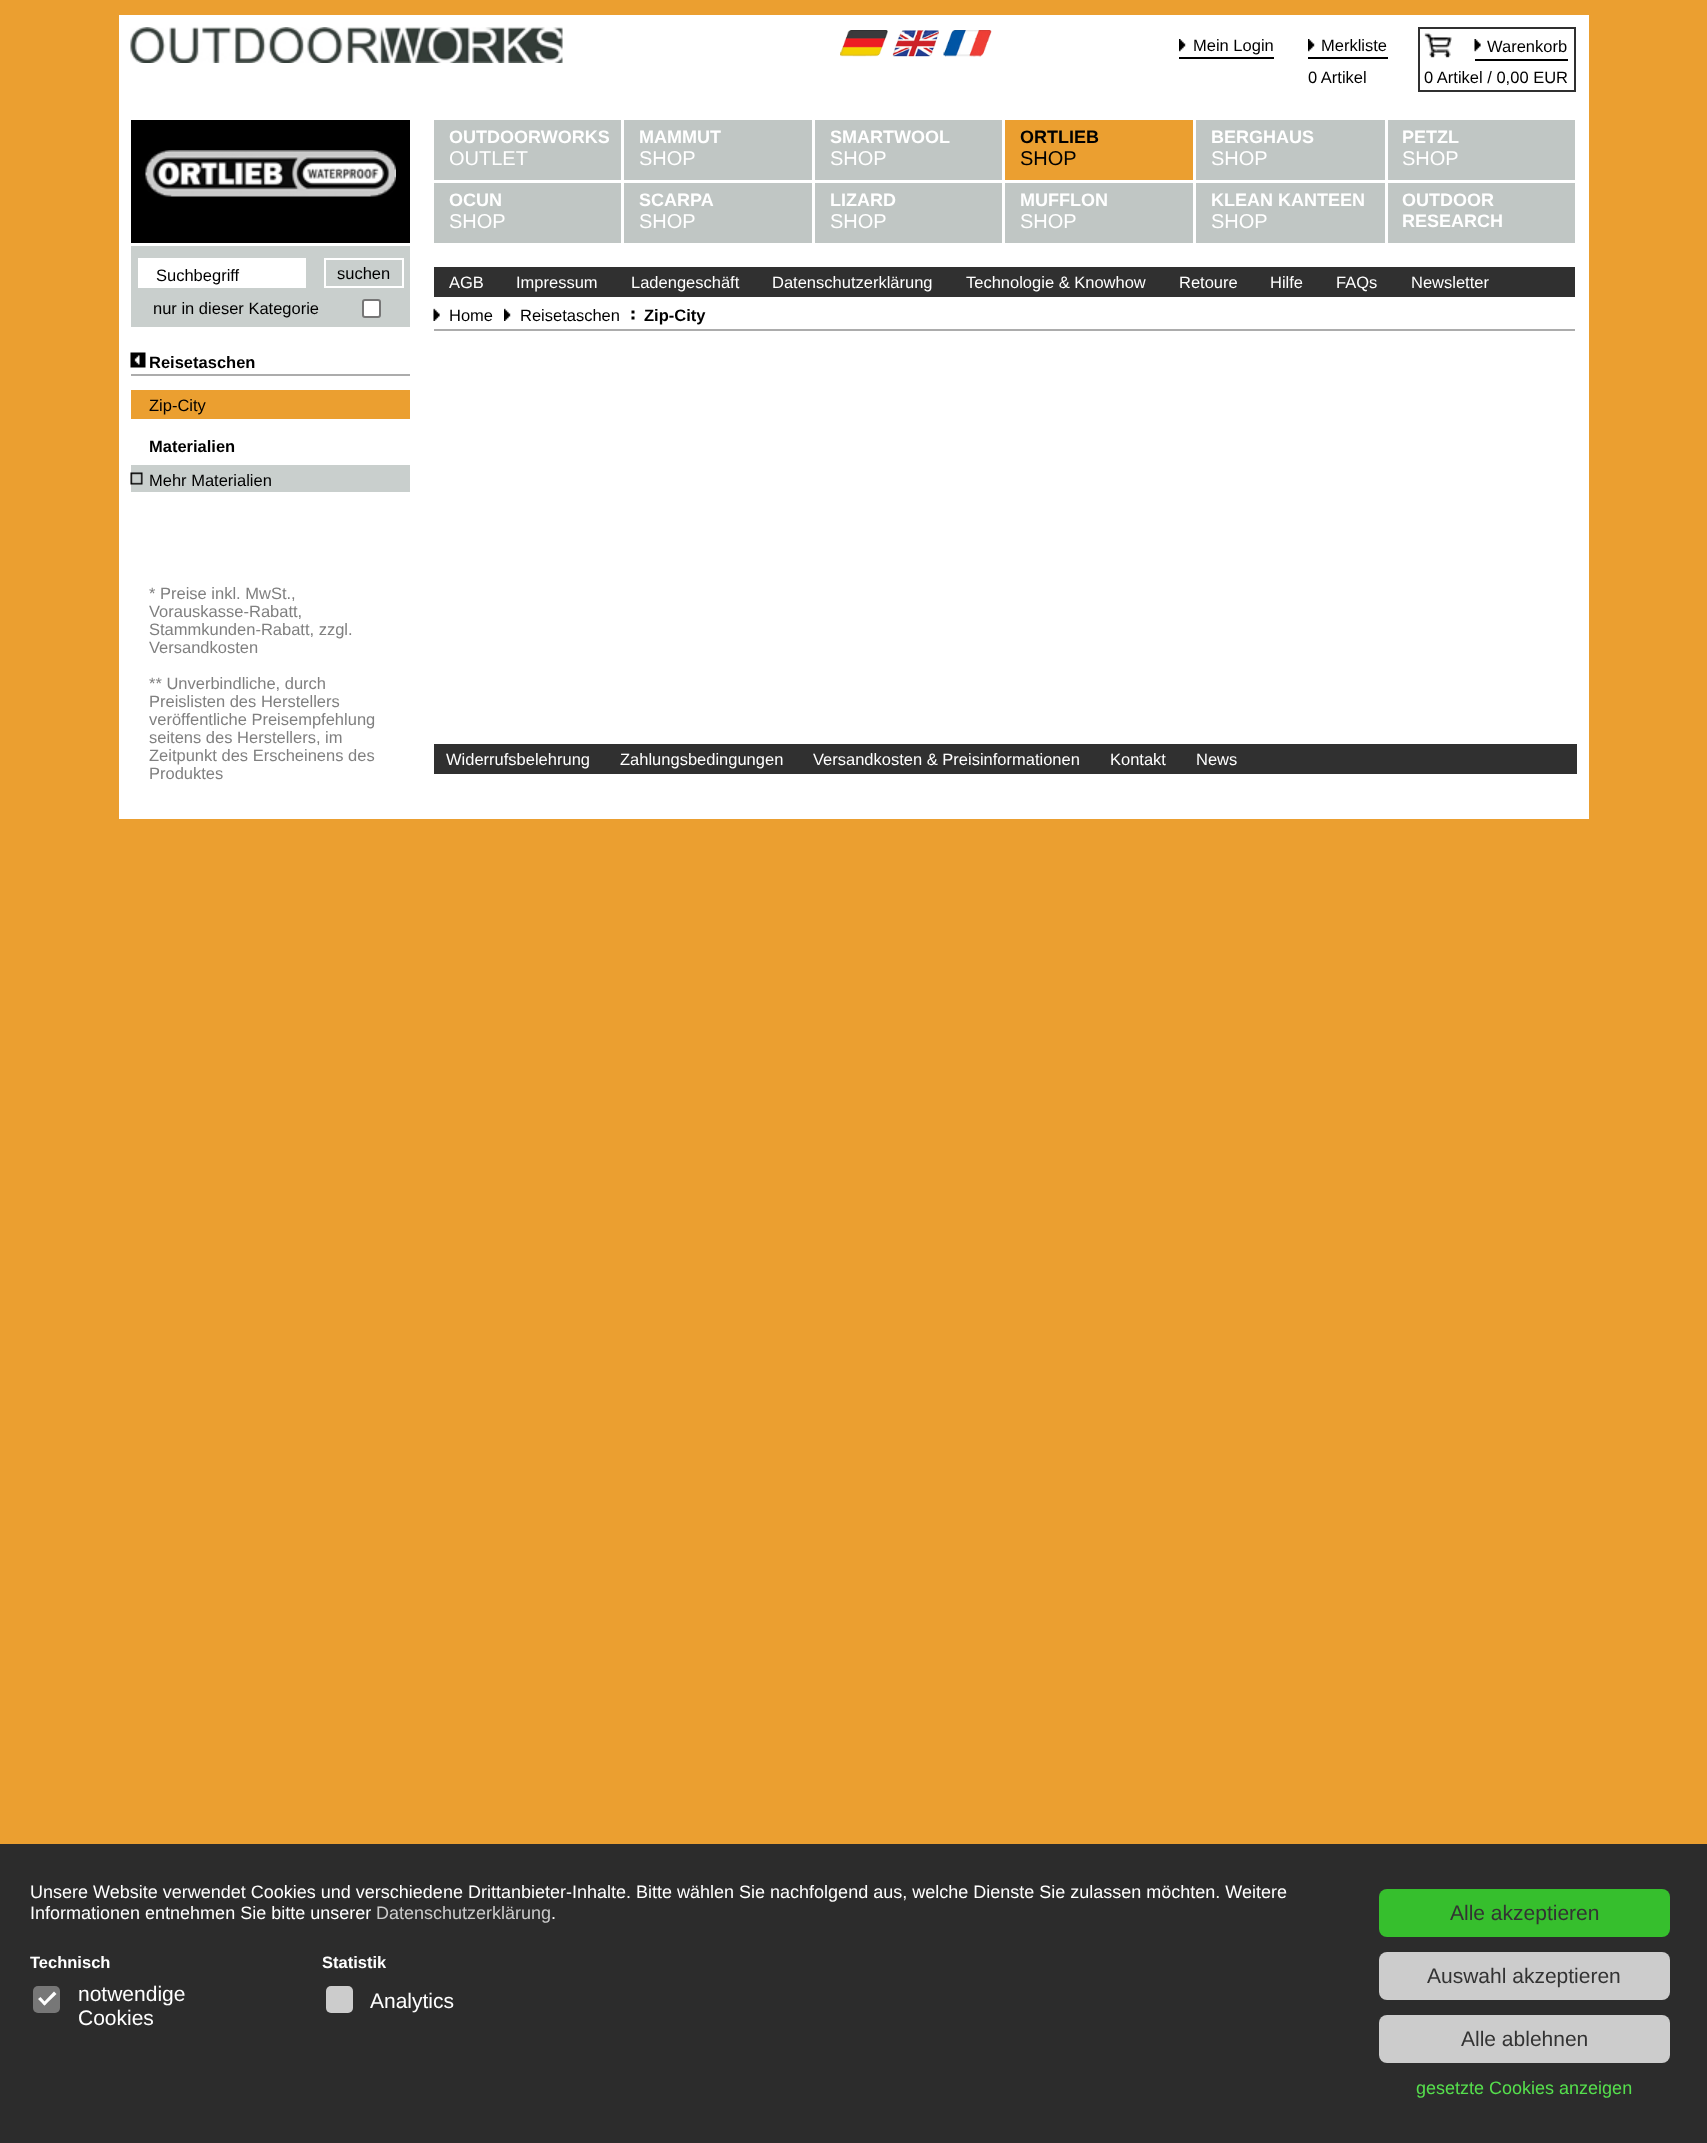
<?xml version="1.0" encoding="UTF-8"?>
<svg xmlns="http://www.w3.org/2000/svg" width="1707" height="2143">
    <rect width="100%" height="100%" fill="#EB9F30"/>
    <rect x="119" y="15" width="1470" height="804" fill="#FFFFFF"/>
    <image x="130" y="27" width="433" height="36" href="img_01.png"/>
    <image x="840" y="30" width="48" height="27" href="img_02.png"/>
    <image x="892" y="30" width="47" height="27" href="img_03.png"/>
    <image x="943" y="30" width="49" height="27" href="img_04.png"/>
    <image x="1179" y="39" width="7" height="13" href="img_05.png"/>
    <text x="1193" y="51" font-family="Liberation Sans" font-size="16.5" fill="#000000">Mein Login</text>
    <rect x="1179" y="57" width="95" height="2" fill="#000000"/>
    <image x="1308" y="39" width="7" height="13" href="img_06.png"/>
    <text x="1321" y="51" font-family="Liberation Sans" font-size="16.5" fill="#000000">Merkliste</text>
    <rect x="1308" y="57" width="80" height="2" fill="#000000"/>
    <rect x="1418" y="27" width="157" height="2" fill="#303030"/>
    <rect x="1418" y="27" width="2" height="36" fill="#303030"/>
    <image x="1424" y="33" width="28" height="25" href="img_07.png"/>
    <rect x="1574" y="27" width="2" height="65" fill="#303030"/>
    <image x="1474" y="39" width="7" height="13" href="img_08.png"/>
    <text x="1487" y="52" font-family="Liberation Sans" font-size="16.5" fill="#000000">Warenkorb</text>
    <rect x="1475" y="59" width="93" height="2" fill="#000000"/>
    <text x="1308" y="83" font-family="Liberation Sans" font-size="16.5" fill="#000000">0 Artikel</text>
    <rect x="1418" y="90" width="157" height="2" fill="#303030"/>
    <rect x="1418" y="63" width="2" height="29" fill="#303030"/>
    <text x="1424" y="83" font-family="Liberation Sans" font-size="16.5" fill="#000000">0 Artikel / 0,00 EUR</text>
    <rect x="434" y="120" width="187" height="60" fill="#C0C6C4"/>
    <text x="449" y="143" font-family="Liberation Sans" font-size="18" font-weight="700" fill="#FFFFFF">OUTDOORWORKS</text>
    <text x="449" y="165" font-family="Liberation Sans" font-size="20" fill="#FFFFFF">OUTLET</text>
    <rect x="624" y="120" width="188" height="60" fill="#C0C6C4"/>
    <text x="639" y="143" font-family="Liberation Sans" font-size="18" font-weight="700" fill="#FFFFFF">MAMMUT</text>
    <text x="639" y="165" font-family="Liberation Sans" font-size="20" fill="#FFFFFF">SHOP</text>
    <rect x="815" y="120" width="187" height="60" fill="#C0C6C4"/>
    <text x="830" y="143" font-family="Liberation Sans" font-size="18" font-weight="700" fill="#FFFFFF">SMARTWOOL</text>
    <text x="830" y="165" font-family="Liberation Sans" font-size="20" fill="#FFFFFF">SHOP</text>
    <rect x="1005" y="120" width="188" height="60" fill="#EB9F30"/>
    <text x="1020" y="143" font-family="Liberation Sans" font-size="18" font-weight="700" fill="#000000">ORTLIEB</text>
    <text x="1020" y="165" font-family="Liberation Sans" font-size="20" fill="#000000">SHOP</text>
    <rect x="1196" y="120" width="189" height="60" fill="#C0C6C4"/>
    <text x="1211" y="143" font-family="Liberation Sans" font-size="18" font-weight="700" fill="#FFFFFF">BERGHAUS</text>
    <text x="1211" y="165" font-family="Liberation Sans" font-size="20" fill="#FFFFFF">SHOP</text>
    <rect x="1388" y="120" width="187" height="60" fill="#C0C6C4"/>
    <text x="1402" y="143" font-family="Liberation Sans" font-size="18" font-weight="700" fill="#FFFFFF">PETZL</text>
    <text x="1402" y="165" font-family="Liberation Sans" font-size="20" fill="#FFFFFF">SHOP</text>
    <rect x="434" y="183" width="187" height="60" fill="#C0C6C4"/>
    <text x="449" y="206" font-family="Liberation Sans" font-size="18" font-weight="700" fill="#FFFFFF">OCUN</text>
    <text x="449" y="228" font-family="Liberation Sans" font-size="20" fill="#FFFFFF">SHOP</text>
    <rect x="624" y="183" width="188" height="60" fill="#C0C6C4"/>
    <text x="639" y="206" font-family="Liberation Sans" font-size="18" font-weight="700" fill="#FFFFFF">SCARPA</text>
    <text x="639" y="228" font-family="Liberation Sans" font-size="20" fill="#FFFFFF">SHOP</text>
    <rect x="815" y="183" width="187" height="60" fill="#C0C6C4"/>
    <text x="830" y="206" font-family="Liberation Sans" font-size="18" font-weight="700" fill="#FFFFFF">LIZARD</text>
    <text x="830" y="228" font-family="Liberation Sans" font-size="20" fill="#FFFFFF">SHOP</text>
    <rect x="1005" y="183" width="188" height="60" fill="#C0C6C4"/>
    <text x="1020" y="206" font-family="Liberation Sans" font-size="18" font-weight="700" fill="#FFFFFF">MUFFLON</text>
    <text x="1020" y="228" font-family="Liberation Sans" font-size="20" fill="#FFFFFF">SHOP</text>
    <rect x="1196" y="183" width="189" height="60" fill="#C0C6C4"/>
    <text x="1211" y="206" font-family="Liberation Sans" font-size="18" font-weight="700" fill="#FFFFFF">KLEAN KANTEEN</text>
    <text x="1211" y="228" font-family="Liberation Sans" font-size="20" fill="#FFFFFF">SHOP</text>
    <rect x="1388" y="183" width="187" height="60" fill="#C0C6C4"/>
    <text font-family="Liberation Sans" font-size="18" font-weight="700" fill="#FFFFFF">
        <tspan x="1402" y="206">OUTDOOR</tspan>
        <tspan x="1402" y="227">RESEARCH</tspan>
    </text>
    <rect x="434" y="267" width="1141" height="30" fill="#303030"/>
    <text x="449" y="288" font-family="Liberation Sans" font-size="16.5" fill="#FFFFFF">AGB</text>
    <text x="516" y="288" font-family="Liberation Sans" font-size="16.5" fill="#FFFFFF">Impressum</text>
    <text x="631" y="288" font-family="Liberation Sans" font-size="16.5" fill="#FFFFFF">Ladengeschäft</text>
    <text x="772" y="288" font-family="Liberation Sans" font-size="16.5" fill="#FFFFFF">Datenschutzerklärung</text>
    <text x="966" y="288" font-family="Liberation Sans" font-size="16.5" fill="#FFFFFF">Technologie &amp; Knowhow</text>
    <text x="1179" y="288" font-family="Liberation Sans" font-size="16.5" fill="#FFFFFF">Retoure</text>
    <text x="1270" y="288" font-family="Liberation Sans" font-size="16.5" fill="#FFFFFF">Hilfe</text>
    <text x="1336" y="288" font-family="Liberation Sans" font-size="16.5" fill="#FFFFFF">FAQs</text>
    <text x="1411" y="288" font-family="Liberation Sans" font-size="16.5" fill="#FFFFFF">Newsletter</text>
    <rect x="434" y="329" width="1141" height="2" fill="#ACACAC"/>
    <image x="433" y="308" width="7" height="13" href="img_09.png"/>
    <text x="449" y="321" font-family="Liberation Sans" font-size="16.5" fill="#000000">Home</text>
    <image x="504" y="308" width="7" height="13" href="img_10.png"/>
    <text x="520" y="321" font-family="Liberation Sans" font-size="16.5" fill="#000000">Reisetaschen</text>
    <image x="631" y="310" width="4" height="10" href="img_11.png"/>
    <text x="644" y="321" font-family="Liberation Sans" font-size="16.5" font-weight="700" fill="#000000">Zip-City</text>
    <rect x="131" y="120" width="279" height="123" fill="#000000"/>
    <image x="144" y="150" width="252" height="47" href="img_12.png"/>
    <rect x="131" y="246" width="279" height="81" fill="#C9CFCD"/>
    <rect x="138" y="258" width="168" height="30" fill="#FFFFFF"/>
    <text x="156" y="281" font-family="Liberation Sans" font-size="16.5" fill="#000000">Suchbegriff</text>
    <rect x="325" y="259" width="78" height="28" fill="none" stroke="#FFFFFF" stroke-width="2"/>
    <text x="337" y="279" font-family="Liberation Sans" font-size="16.5" fill="#000000">suchen</text>
    <text x="153" y="314" font-family="Liberation Sans" font-size="16.5" fill="#000000">nur in dieser Kategorie</text>
    <rect x="363" y="300" width="17" height="17" rx="2" fill="#FFFFFF" stroke="#767676" stroke-width="2"/>
    <image x="130" y="352" width="16" height="16" href="img_13.png"/>
    <rect x="131" y="374" width="279" height="2" fill="#ACACAC"/>
    <text x="149" y="368" font-family="Liberation Sans" font-size="16.5" font-weight="700" fill="#000000">Reisetaschen</text>
    <rect x="131" y="390" width="279" height="29" fill="#EB9F30"/>
    <text x="149" y="411" font-family="Liberation Sans" font-size="16.5" fill="#000000">Zip-City</text>
    <text x="149" y="452" font-family="Liberation Sans" font-size="16.5" font-weight="700" fill="#000000">Materialien</text>
    <rect x="131" y="465" width="279" height="27" fill="#C9CFCD"/>
    <image x="130" y="472" width="13" height="13" href="img_14.png"/>
    <text x="149" y="486" font-family="Liberation Sans" font-size="16.5" fill="#000000">Mehr Materialien</text>
    <text font-family="Liberation Sans" font-size="16.5" fill="#808080">
        <tspan x="149" y="599">* Preise inkl. MwSt.,</tspan>
        <tspan x="149" y="617">Vorauskasse-Rabatt,</tspan>
        <tspan x="149" y="635">Stammkunden-Rabatt, zzgl.</tspan>
        <tspan x="149" y="653">Versandkosten</tspan>
    </text>
    <text font-family="Liberation Sans" font-size="16.5" fill="#808080">
        <tspan x="149" y="689">** Unverbindliche, durch</tspan>
        <tspan x="149" y="707">Preislisten des Herstellers</tspan>
        <tspan x="149" y="725">veröffentliche Preisempfehlung</tspan>
        <tspan x="149" y="743">seitens des Herstellers, im</tspan>
        <tspan x="149" y="761">Zeitpunkt des Erscheinens des</tspan>
        <tspan x="149" y="779">Produktes</tspan>
    </text>
    <rect x="434" y="744" width="1143" height="30" fill="#303030"/>
    <text x="446" y="765" font-family="Liberation Sans" font-size="16.5" fill="#FFFFFF">Widerrufsbelehrung</text>
    <text x="620" y="765" font-family="Liberation Sans" font-size="16.5" fill="#FFFFFF">Zahlungsbedingungen</text>
    <text x="813" y="765" font-family="Liberation Sans" font-size="16.5" fill="#FFFFFF">Versandkosten &amp; Preisinformationen</text>
    <text x="1110" y="765" font-family="Liberation Sans" font-size="16.5" fill="#FFFFFF">Kontakt</text>
    <text x="1196" y="765" font-family="Liberation Sans" font-size="16.5" fill="#FFFFFF">News</text>
    <rect x="0" y="1844" width="1707" height="299" fill="#2C2C2C"/>
    <text font-family="Liberation Sans" font-size="18" fill="#FFFFFF">
        <tspan x="30" y="1898">Unsere Website verwendet Cookies und verschiedene Drittanbieter-Inhalte. Bitte wählen Sie nachfolgend aus, welche Dienste Sie zulassen möchten. Weitere</tspan>
        <tspan x="30" y="1919">Informationen entnehmen Sie bitte unserer</tspan>
    </text>
    <text x="376" y="1919" font-family="Liberation Sans" font-size="18" fill="#CCCCCC">Datenschutzerklärung</text>
    <text x="551" y="1919" font-family="Liberation Sans" font-size="18" fill="#FFFFFF">.</text>
    <text x="30" y="1968" font-family="Liberation Sans" font-size="16.5" font-weight="700" fill="#FFFFFF">Technisch</text>
    <rect x="33" y="1986" width="27" height="27" rx="5" fill="#777777"/>
    <text font-family="Liberation Sans" font-size="21" fill="#FFFFFF">
        <tspan x="78" y="2001">notwendige</tspan>
        <tspan x="78" y="2025">Cookies</tspan>
    </text>
    <path d="M 42.5 2003.5 L 54 1991.5 L 56.5 1994 L 44.5 2005.5 Z" fill="#FFFFFF"/>
    <path d="M 38 1999 L 40.5 1997 L 46.5 2003.5 L 44.5 2005.5 Z" fill="#FFFFFF"/>
    <text x="322" y="1968" font-family="Liberation Sans" font-size="16.5" font-weight="700" fill="#FFFFFF">Statistik</text>
    <rect x="326" y="1986" width="27" height="27" rx="5" fill="#CCCCCC"/>
    <text x="370" y="2008" font-family="Liberation Sans" font-size="21" fill="#FFFFFF">Analytics</text>
    <rect x="1379" y="1889" width="291" height="48" rx="8" fill="#36BF2D"/>
    <text x="1450" y="1920" font-family="Liberation Sans" font-size="21" fill="#333333">Alle akzeptieren</text>
    <rect x="1379" y="1952" width="291" height="48" rx="8" fill="#CCCCCC"/>
    <text x="1427" y="1983" font-family="Liberation Sans" font-size="21" fill="#333333">Auswahl akzeptieren</text>
    <rect x="1379" y="2015" width="291" height="48" rx="8" fill="#CCCCCC"/>
    <text x="1461" y="2046" font-family="Liberation Sans" font-size="21" fill="#333333">Alle ablehnen</text>
    <text x="1416" y="2094" font-family="Liberation Sans" font-size="18" fill="#56DF4D">gesetzte Cookies anzeigen</text>
</svg>
